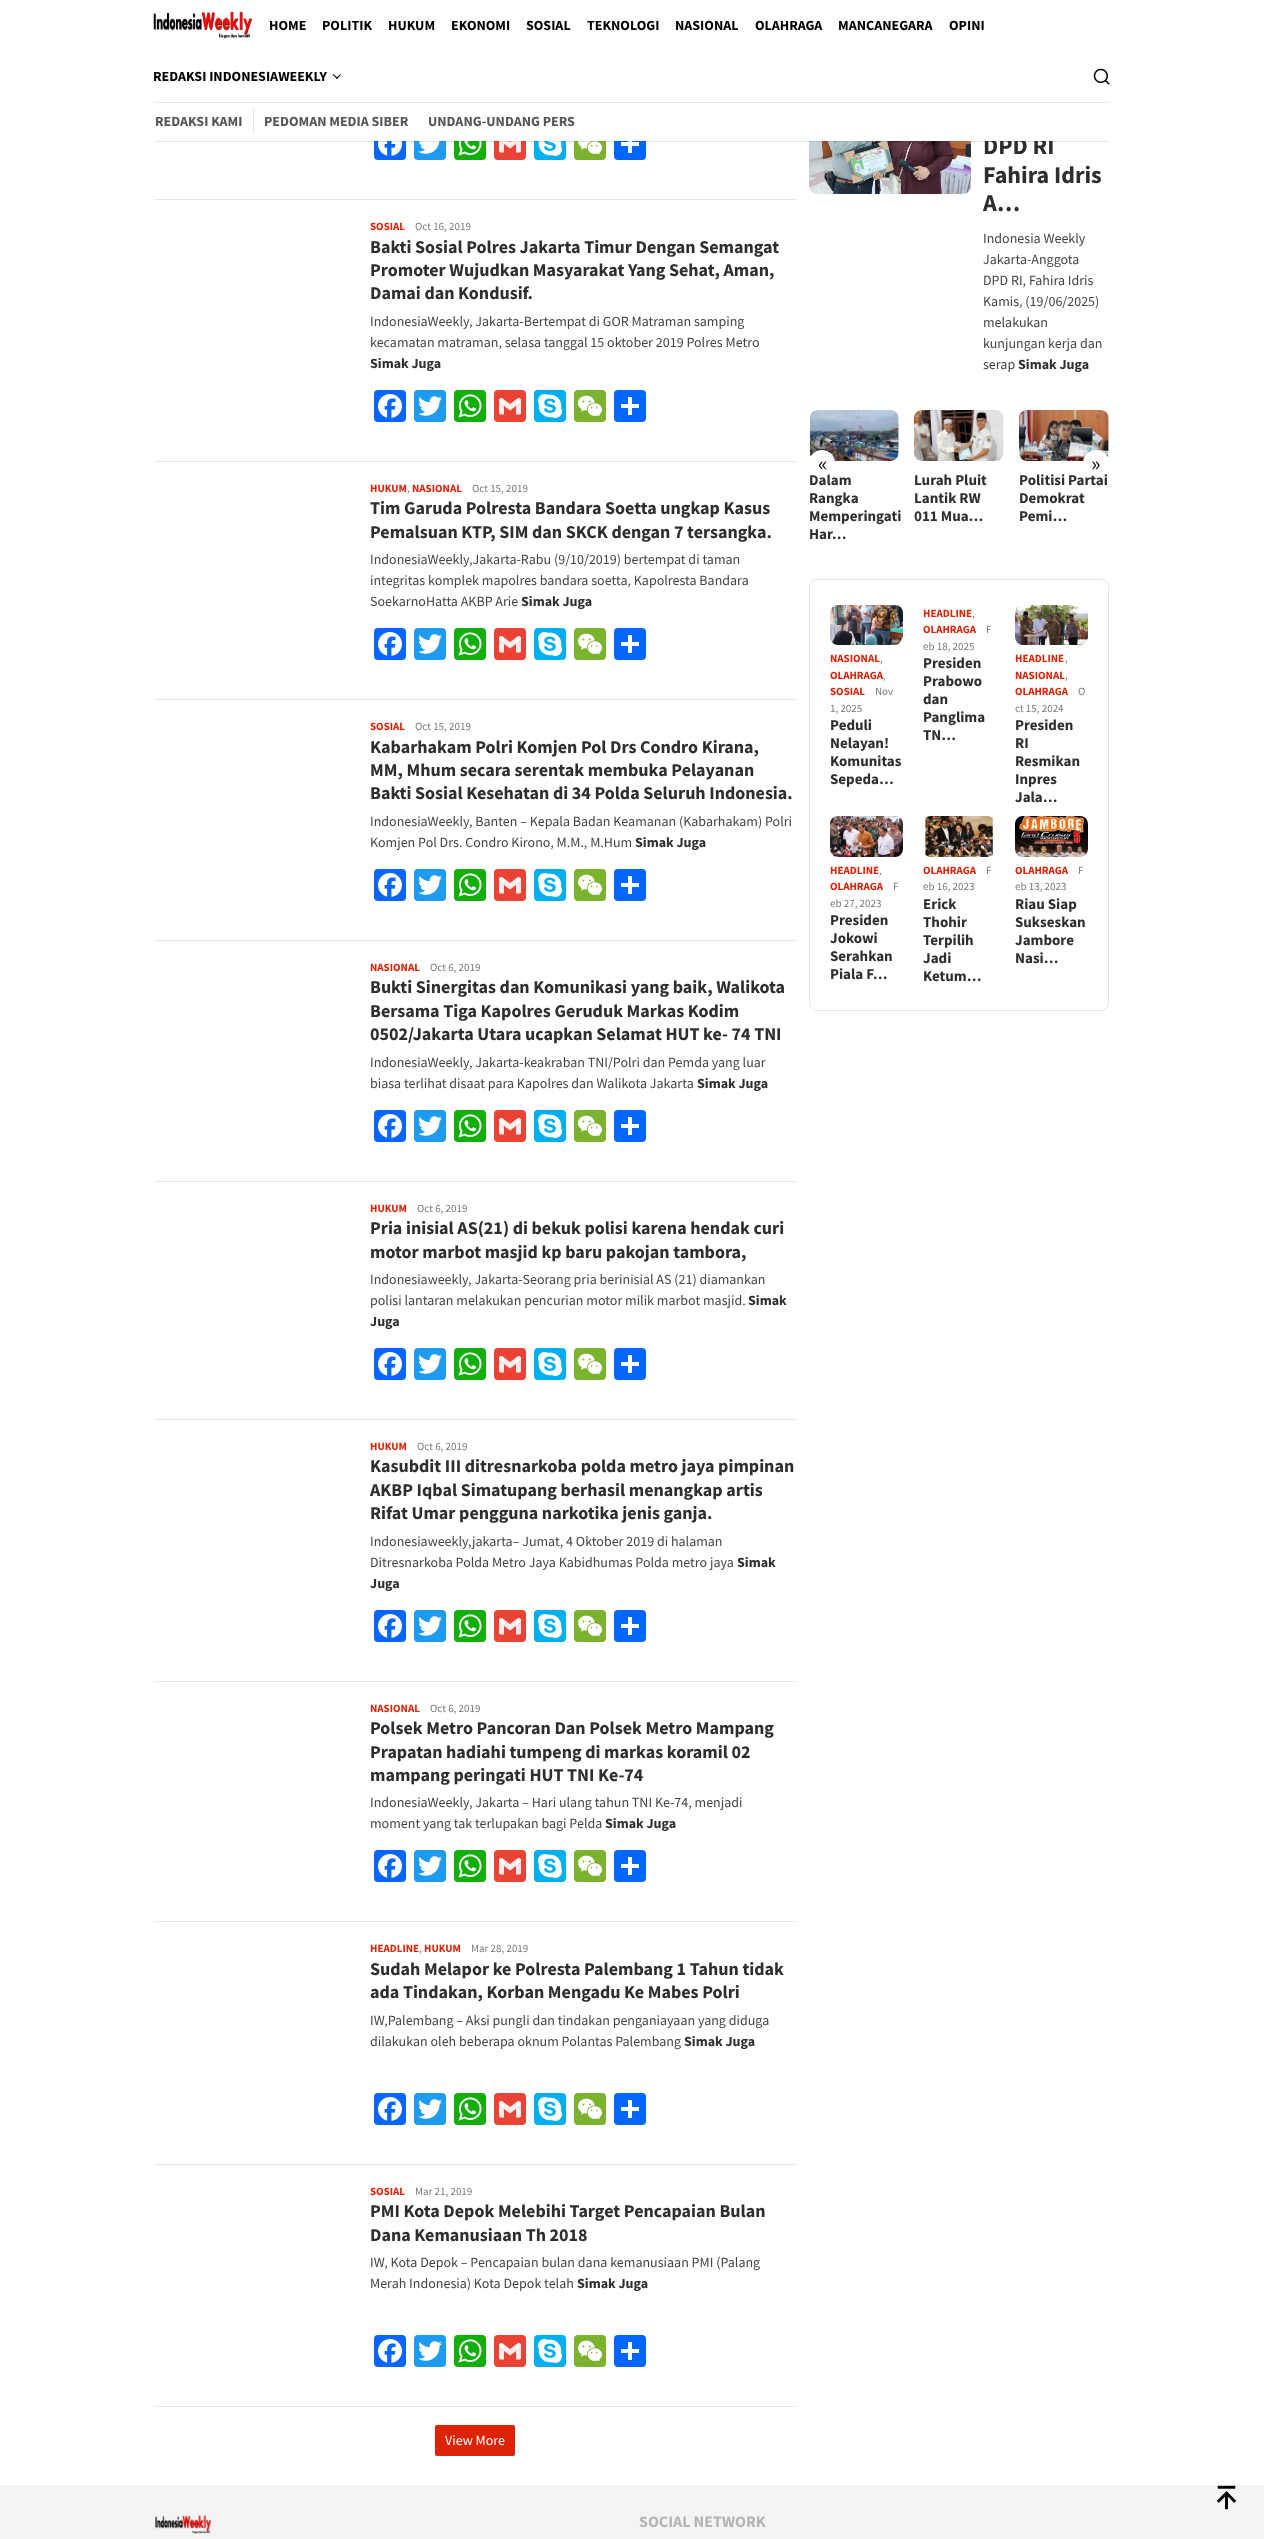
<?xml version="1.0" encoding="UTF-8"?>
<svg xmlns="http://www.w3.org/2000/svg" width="1264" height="2539">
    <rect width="100%" height="100%" fill="#F4F4F4"/>
    <rect x="0" y="141" width="1264" height="2344" fill="#FFFFFF"/>
    <rect x="374" y="128" width="32" height="32" rx="4" fill="#0866FF"/>
    <rect x="414" y="128" width="32" height="32" rx="4" fill="#1D9BF0"/>
    <rect x="454" y="128" width="32" height="32" rx="4" fill="#12AF0A"/>
    <rect x="494" y="128" width="32" height="32" rx="4" fill="#EA4335"/>
    <rect x="534" y="128" width="32" height="32" rx="4" fill="#00AFF0"/>
    <rect x="574" y="128" width="32" height="32" rx="4" fill="#7BB32E"/>
    <rect x="614" y="128" width="32" height="32" rx="4" fill="#0166FF"/>
    <rect x="628" y="135" width="4" height="18" fill="#FFFFFF"/>
    <text x="983" y="154" font-family="Source Sans Pro" font-size="24" font-weight="700" fill="#2E2E2E">DPD RI</text>
    <rect x="0" y="0" width="1264" height="141" fill="#FFFFFF"/>
    <rect x="155" y="102" width="954" height="1" fill="#E6E6E6"/>
    <image x="153" y="11" width="100" height="28" href="img_01.png"/>
    <text x="269" y="30" font-family="Source Sans Pro" font-size="14" font-weight="700" fill="#000000">HOME</text>
    <text x="322" y="30" font-family="Source Sans Pro" font-size="14" font-weight="700" fill="#000000">POLITIK</text>
    <text x="388" y="30" font-family="Source Sans Pro" font-size="14" font-weight="700" fill="#000000">HUKUM</text>
    <text x="451" y="30" font-family="Source Sans Pro" font-size="14" font-weight="700" fill="#000000">EKONOMI</text>
    <text x="526" y="30" font-family="Source Sans Pro" font-size="14" font-weight="700" fill="#000000">SOSIAL</text>
    <text x="587" y="30" font-family="Source Sans Pro" font-size="14" font-weight="700" fill="#000000">TEKNOLOGI</text>
    <text x="675" y="30" font-family="Source Sans Pro" font-size="14" font-weight="700" fill="#000000">NASIONAL</text>
    <text x="755" y="30" font-family="Source Sans Pro" font-size="14" font-weight="700" fill="#000000">OLAHRAGA</text>
    <text x="838" y="30" font-family="Source Sans Pro" font-size="14" font-weight="700" fill="#000000">MANCANEGARA</text>
    <text x="949" y="30" font-family="Source Sans Pro" font-size="14" font-weight="700" fill="#000000">OPINI</text>
    <text x="153" y="81" font-family="Source Sans Pro" font-size="14" font-weight="700" fill="#000000">REDAKSI INDONESIAWEEKLY</text>
    <path d="M 340.5 74 L 341 74.5 L 337 79 L 336 78 Z" fill="#000000"/>
    <path d="M 333.5 74 L 337.5 78 L 337 79 L 332.5 74.5 Z" fill="#000000"/>
    <image x="1093" y="68" width="17" height="17" href="img_02.png"/>
    <image x="378" y="141" width="24" height="15" href="img_03.png"/>
    <image x="418" y="141" width="22" height="13" href="img_04.png"/>
    <image x="458" y="141" width="24" height="15" href="img_05.png"/>
    <image x="499" y="141" width="22" height="12" href="img_06.png"/>
    <image x="538" y="141" width="24" height="15" href="img_07.png"/>
    <image x="578" y="141" width="24" height="14" href="img_08.png"/>
    <image x="809" y="141" width="162" height="53" href="img_15.png"/>
    <rect x="155" y="141" width="954" height="1" fill="#000000" fill-opacity="0.1"/>
    <rect x="253" y="109" width="1" height="25" fill="#E6E6E6"/>
    <text x="155" y="126" font-family="Source Sans Pro" font-size="14" font-weight="700" fill="#555555">REDAKSI KAMI</text>
    <text x="264" y="126" font-family="Source Sans Pro" font-size="14" font-weight="700" fill="#555555">PEDOMAN MEDIA SIBER</text>
    <text x="428" y="126" font-family="Source Sans Pro" font-size="14" font-weight="700" fill="#555555">UNDANG-UNDANG PERS</text>
    <rect x="155" y="199" width="640" height="1" fill="#E5E5E5"/>
    <rect x="621" y="142" width="18" height="4" fill="#FFFFFF"/>
    <rect x="155" y="461" width="640" height="1" fill="#E5E5E5"/>
    <text x="370" y="230" font-family="Source Sans Pro" font-size="11" font-weight="700" fill="#DD2306">SOSIAL</text>
    <text x="415" y="230" font-family="Source Sans Pro" font-size="11" fill="#787878">Oct 16, 2019</text>
    <text font-family="Source Sans Pro" font-size="18" font-weight="700" fill="#2E2E2E">
        <tspan x="370" y="253">Bakti Sosial Polres Jakarta Timur Dengan Semangat</tspan>
        <tspan x="370" y="276">Promoter Wujudkan Masyarakat Yang Sehat, Aman,</tspan>
        <tspan x="370" y="299">Damai dan Kondusif.</tspan>
    </text>
    <text font-family="Source Sans Pro" font-size="14" fill="#444444">
        <tspan x="370" y="326">IndonesiaWeekly, Jakarta-Bertempat di GOR Matraman samping</tspan>
        <tspan x="370" y="347">kecamatan matraman, selasa tanggal 15 oktober 2019 Polres Metro</tspan>
    </text>
    <text x="370" y="368" font-family="Source Sans Pro" font-size="14" font-weight="700" fill="#2E2E2E">Simak Juga</text>
    <rect x="374" y="390" width="32" height="32" rx="4" fill="#0866FF"/>
    <image x="378" y="394" width="24" height="24" href="img_09.png"/>
    <rect x="414" y="390" width="32" height="32" rx="4" fill="#1D9BF0"/>
    <image x="418" y="396" width="24" height="20" href="img_10.png"/>
    <rect x="454" y="390" width="32" height="32" rx="4" fill="#12AF0A"/>
    <image x="458" y="394" width="24" height="24" href="img_11.png"/>
    <rect x="494" y="390" width="32" height="32" rx="4" fill="#EA4335"/>
    <image x="499" y="398" width="22" height="17" href="img_12.png"/>
    <rect x="534" y="390" width="32" height="32" rx="4" fill="#00AFF0"/>
    <image x="538" y="394" width="24" height="24" href="img_13.png"/>
    <rect x="574" y="390" width="32" height="32" rx="4" fill="#7BB32E"/>
    <image x="578" y="395" width="24" height="22" href="img_14.png"/>
    <rect x="614" y="390" width="32" height="32" rx="4" fill="#0166FF"/>
    <rect x="628" y="397" width="4" height="18" fill="#FFFFFF"/>
    <rect x="621" y="404" width="18" height="4" fill="#FFFFFF"/>
    <rect x="155" y="699" width="640" height="1" fill="#E5E5E5"/>
    <text x="370" y="492" font-family="Source Sans Pro" font-size="11" font-weight="700" fill="#DD2306">HUKUM</text>
    <text x="407" y="492" font-family="Source Sans Pro" font-size="11" fill="#787878">,</text>
    <text x="412" y="492" font-family="Source Sans Pro" font-size="11" font-weight="700" fill="#DD2306">NASIONAL</text>
    <text x="472" y="492" font-family="Source Sans Pro" font-size="11" fill="#787878">Oct 15, 2019</text>
    <text font-family="Source Sans Pro" font-size="18" font-weight="700" fill="#2E2E2E">
        <tspan x="370" y="514">Tim Garuda Polresta Bandara Soetta ungkap Kasus</tspan>
        <tspan x="370" y="538">Pemalsuan KTP, SIM dan SKCK dengan 7 tersangka.</tspan>
    </text>
    <text font-family="Source Sans Pro" font-size="14" fill="#444444">
        <tspan x="370" y="564">IndonesiaWeekly,Jakarta-Rabu (9/10/2019) bertempat di taman</tspan>
        <tspan x="370" y="585">integritas komplek mapolres bandara soetta, Kapolresta Bandara</tspan>
        <tspan x="370" y="606">SoekarnoHatta AKBP Arie</tspan>
    </text>
    <text x="521" y="606" font-family="Source Sans Pro" font-size="14" font-weight="700" fill="#2E2E2E">Simak Juga</text>
    <rect x="374" y="628" width="32" height="32" rx="4" fill="#0866FF"/>
    <image x="378" y="632" width="24" height="24" href="img_09.png"/>
    <rect x="414" y="628" width="32" height="32" rx="4" fill="#1D9BF0"/>
    <image x="418" y="634" width="24" height="20" href="img_10.png"/>
    <rect x="454" y="628" width="32" height="32" rx="4" fill="#12AF0A"/>
    <image x="458" y="632" width="24" height="24" href="img_11.png"/>
    <rect x="494" y="628" width="32" height="32" rx="4" fill="#EA4335"/>
    <image x="499" y="636" width="22" height="17" href="img_12.png"/>
    <rect x="534" y="628" width="32" height="32" rx="4" fill="#00AFF0"/>
    <image x="538" y="632" width="24" height="24" href="img_13.png"/>
    <rect x="574" y="628" width="32" height="32" rx="4" fill="#7BB32E"/>
    <image x="578" y="633" width="24" height="22" href="img_14.png"/>
    <rect x="614" y="628" width="32" height="32" rx="4" fill="#0166FF"/>
    <rect x="628" y="635" width="4" height="18" fill="#FFFFFF"/>
    <rect x="621" y="642" width="18" height="4" fill="#FFFFFF"/>
    <rect x="155" y="940" width="640" height="1" fill="#E5E5E5"/>
    <text x="370" y="730" font-family="Source Sans Pro" font-size="11" font-weight="700" fill="#DD2306">SOSIAL</text>
    <text x="415" y="730" font-family="Source Sans Pro" font-size="11" fill="#787878">Oct 15, 2019</text>
    <text font-family="Source Sans Pro" font-size="18" font-weight="700" fill="#2E2E2E">
        <tspan x="370" y="753">Kabarhakam Polri Komjen Pol Drs Condro Kirana,</tspan>
        <tspan x="370" y="776">MM, Mhum secara serentak membuka Pelayanan</tspan>
        <tspan x="370" y="799">Bakti Sosial Kesehatan di 34 Polda Seluruh Indonesia.</tspan>
    </text>
    <text font-family="Source Sans Pro" font-size="14" fill="#444444">
        <tspan x="370" y="826">IndonesiaWeekly, Banten – Kepala Badan Keamanan (Kabarhakam) Polri</tspan>
        <tspan x="370" y="847">Komjen Pol Drs. Condro Kirono, M.M., M.Hum</tspan>
    </text>
    <text x="635" y="847" font-family="Source Sans Pro" font-size="14" font-weight="700" fill="#2E2E2E">Simak Juga</text>
    <rect x="374" y="869" width="32" height="32" rx="4" fill="#0866FF"/>
    <image x="378" y="873" width="24" height="24" href="img_09.png"/>
    <rect x="414" y="869" width="32" height="32" rx="4" fill="#1D9BF0"/>
    <image x="418" y="875" width="24" height="20" href="img_10.png"/>
    <rect x="454" y="869" width="32" height="32" rx="4" fill="#12AF0A"/>
    <image x="458" y="873" width="24" height="24" href="img_11.png"/>
    <rect x="494" y="869" width="32" height="32" rx="4" fill="#EA4335"/>
    <image x="499" y="877" width="22" height="17" href="img_12.png"/>
    <rect x="534" y="869" width="32" height="32" rx="4" fill="#00AFF0"/>
    <image x="538" y="873" width="24" height="24" href="img_13.png"/>
    <rect x="574" y="869" width="32" height="32" rx="4" fill="#7BB32E"/>
    <image x="578" y="874" width="24" height="22" href="img_14.png"/>
    <rect x="614" y="869" width="32" height="32" rx="4" fill="#0166FF"/>
    <rect x="628" y="876" width="4" height="18" fill="#FFFFFF"/>
    <rect x="621" y="883" width="18" height="4" fill="#FFFFFF"/>
    <rect x="155" y="1181" width="640" height="1" fill="#E5E5E5"/>
    <text x="370" y="971" font-family="Source Sans Pro" font-size="11" font-weight="700" fill="#DD2306">NASIONAL</text>
    <text x="430" y="971" font-family="Source Sans Pro" font-size="11" fill="#787878">Oct 6, 2019</text>
    <text font-family="Source Sans Pro" font-size="18" font-weight="700" fill="#2E2E2E">
        <tspan x="370" y="993">Bukti Sinergitas dan Komunikasi yang baik, Walikota</tspan>
        <tspan x="370" y="1017">Bersama Tiga Kapolres Geruduk Markas Kodim</tspan>
        <tspan x="370" y="1040">0502/Jakarta Utara ucapkan Selamat HUT ke- 74 TNI</tspan>
    </text>
    <text font-family="Source Sans Pro" font-size="14" fill="#444444">
        <tspan x="370" y="1067">IndonesiaWeekly, Jakarta-keakraban TNI/Polri dan Pemda yang luar</tspan>
        <tspan x="370" y="1088">biasa terlihat disaat para Kapolres dan Walikota Jakarta</tspan>
    </text>
    <text x="697" y="1088" font-family="Source Sans Pro" font-size="14" font-weight="700" fill="#2E2E2E">Simak Juga</text>
    <rect x="374" y="1110" width="32" height="32" rx="4" fill="#0866FF"/>
    <image x="378" y="1114" width="24" height="24" href="img_09.png"/>
    <rect x="414" y="1110" width="32" height="32" rx="4" fill="#1D9BF0"/>
    <image x="418" y="1116" width="24" height="20" href="img_10.png"/>
    <rect x="454" y="1110" width="32" height="32" rx="4" fill="#12AF0A"/>
    <image x="458" y="1114" width="24" height="24" href="img_11.png"/>
    <rect x="494" y="1110" width="32" height="32" rx="4" fill="#EA4335"/>
    <image x="499" y="1118" width="22" height="17" href="img_12.png"/>
    <rect x="534" y="1110" width="32" height="32" rx="4" fill="#00AFF0"/>
    <image x="538" y="1114" width="24" height="24" href="img_13.png"/>
    <rect x="574" y="1110" width="32" height="32" rx="4" fill="#7BB32E"/>
    <image x="578" y="1115" width="24" height="22" href="img_14.png"/>
    <rect x="614" y="1110" width="32" height="32" rx="4" fill="#0166FF"/>
    <rect x="628" y="1117" width="4" height="18" fill="#FFFFFF"/>
    <rect x="621" y="1124" width="18" height="4" fill="#FFFFFF"/>
    <rect x="155" y="1419" width="640" height="1" fill="#E5E5E5"/>
    <text x="370" y="1212" font-family="Source Sans Pro" font-size="11" font-weight="700" fill="#DD2306">HUKUM</text>
    <text x="417" y="1212" font-family="Source Sans Pro" font-size="11" fill="#787878">Oct 6, 2019</text>
    <text font-family="Source Sans Pro" font-size="18" font-weight="700" fill="#2E2E2E">
        <tspan x="370" y="1234">Pria inisial AS(21) di bekuk polisi karena hendak curi</tspan>
        <tspan x="370" y="1258">motor marbot masjid kp baru pakojan tambora,</tspan>
    </text>
    <text font-family="Source Sans Pro" font-size="14" fill="#444444">
        <tspan x="370" y="1284">Indonesiaweekly, Jakarta-Seorang pria berinisial AS (21) diamankan</tspan>
        <tspan x="370" y="1305">polisi lantaran melakukan pencurian motor milik marbot masjid.</tspan>
    </text>
    <text x="748" y="1305" font-family="Source Sans Pro" font-size="14" font-weight="700" fill="#2E2E2E">Simak</text>
    <text x="370" y="1326" font-family="Source Sans Pro" font-size="14" font-weight="700" fill="#2E2E2E">Juga</text>
    <rect x="374" y="1348" width="32" height="32" rx="4" fill="#0866FF"/>
    <image x="378" y="1352" width="24" height="24" href="img_09.png"/>
    <rect x="414" y="1348" width="32" height="32" rx="4" fill="#1D9BF0"/>
    <image x="418" y="1354" width="24" height="20" href="img_10.png"/>
    <rect x="454" y="1348" width="32" height="32" rx="4" fill="#12AF0A"/>
    <image x="458" y="1352" width="24" height="24" href="img_11.png"/>
    <rect x="494" y="1348" width="32" height="32" rx="4" fill="#EA4335"/>
    <image x="499" y="1356" width="22" height="17" href="img_12.png"/>
    <rect x="534" y="1348" width="32" height="32" rx="4" fill="#00AFF0"/>
    <image x="538" y="1352" width="24" height="24" href="img_13.png"/>
    <rect x="574" y="1348" width="32" height="32" rx="4" fill="#7BB32E"/>
    <image x="578" y="1353" width="24" height="22" href="img_14.png"/>
    <rect x="614" y="1348" width="32" height="32" rx="4" fill="#0166FF"/>
    <rect x="628" y="1355" width="4" height="18" fill="#FFFFFF"/>
    <rect x="621" y="1362" width="18" height="4" fill="#FFFFFF"/>
    <rect x="155" y="1681" width="640" height="1" fill="#E5E5E5"/>
    <text x="370" y="1450" font-family="Source Sans Pro" font-size="11" font-weight="700" fill="#DD2306">HUKUM</text>
    <text x="417" y="1450" font-family="Source Sans Pro" font-size="11" fill="#787878">Oct 6, 2019</text>
    <text font-family="Source Sans Pro" font-size="18" font-weight="700" fill="#2E2E2E">
        <tspan x="370" y="1472">Kasubdit III ditresnarkoba polda metro jaya pimpinan</tspan>
        <tspan x="370" y="1496">AKBP Iqbal Simatupang berhasil menangkap artis</tspan>
        <tspan x="370" y="1519">Rifat Umar pengguna narkotika jenis ganja.</tspan>
    </text>
    <text font-family="Source Sans Pro" font-size="14" fill="#444444">
        <tspan x="370" y="1546">Indonesiaweekly,jakarta– Jumat, 4 Oktober 2019 di halaman</tspan>
        <tspan x="370" y="1567">Ditresnarkoba Polda Metro Jaya Kabidhumas Polda metro jaya</tspan>
    </text>
    <text x="737" y="1567" font-family="Source Sans Pro" font-size="14" font-weight="700" fill="#2E2E2E">Simak</text>
    <text x="370" y="1588" font-family="Source Sans Pro" font-size="14" font-weight="700" fill="#2E2E2E">Juga</text>
    <rect x="374" y="1610" width="32" height="32" rx="4" fill="#0866FF"/>
    <image x="378" y="1614" width="24" height="24" href="img_09.png"/>
    <rect x="414" y="1610" width="32" height="32" rx="4" fill="#1D9BF0"/>
    <image x="418" y="1616" width="24" height="20" href="img_10.png"/>
    <rect x="454" y="1610" width="32" height="32" rx="4" fill="#12AF0A"/>
    <image x="458" y="1614" width="24" height="24" href="img_11.png"/>
    <rect x="494" y="1610" width="32" height="32" rx="4" fill="#EA4335"/>
    <image x="499" y="1618" width="22" height="17" href="img_12.png"/>
    <rect x="534" y="1610" width="32" height="32" rx="4" fill="#00AFF0"/>
    <image x="538" y="1614" width="24" height="24" href="img_13.png"/>
    <rect x="574" y="1610" width="32" height="32" rx="4" fill="#7BB32E"/>
    <image x="578" y="1615" width="24" height="22" href="img_14.png"/>
    <rect x="614" y="1610" width="32" height="32" rx="4" fill="#0166FF"/>
    <rect x="628" y="1617" width="4" height="18" fill="#FFFFFF"/>
    <rect x="621" y="1624" width="18" height="4" fill="#FFFFFF"/>
    <rect x="155" y="1921" width="640" height="1" fill="#E5E5E5"/>
    <text x="370" y="1712" font-family="Source Sans Pro" font-size="11" font-weight="700" fill="#DD2306">NASIONAL</text>
    <text x="430" y="1712" font-family="Source Sans Pro" font-size="11" fill="#787878">Oct 6, 2019</text>
    <text font-family="Source Sans Pro" font-size="18" font-weight="700" fill="#2E2E2E">
        <tspan x="370" y="1734">Polsek Metro Pancoran Dan Polsek Metro Mampang</tspan>
        <tspan x="370" y="1758">Prapatan hadiahi tumpeng di markas koramil 02</tspan>
        <tspan x="370" y="1781">mampang peringati HUT TNI Ke-74</tspan>
    </text>
    <text font-family="Source Sans Pro" font-size="14" fill="#444444">
        <tspan x="370" y="1807">IndonesiaWeekly, Jakarta – Hari ulang tahun TNI Ke-74, menjadi</tspan>
        <tspan x="370" y="1828">moment yang tak terlupakan bagi Pelda</tspan>
    </text>
    <text x="605" y="1828" font-family="Source Sans Pro" font-size="14" font-weight="700" fill="#2E2E2E">Simak Juga</text>
    <rect x="374" y="1850" width="32" height="32" rx="4" fill="#0866FF"/>
    <image x="378" y="1854" width="24" height="24" href="img_09.png"/>
    <rect x="414" y="1850" width="32" height="32" rx="4" fill="#1D9BF0"/>
    <image x="418" y="1856" width="24" height="20" href="img_10.png"/>
    <rect x="454" y="1850" width="32" height="32" rx="4" fill="#12AF0A"/>
    <image x="458" y="1854" width="24" height="24" href="img_11.png"/>
    <rect x="494" y="1850" width="32" height="32" rx="4" fill="#EA4335"/>
    <image x="499" y="1858" width="22" height="17" href="img_12.png"/>
    <rect x="534" y="1850" width="32" height="32" rx="4" fill="#00AFF0"/>
    <image x="538" y="1854" width="24" height="24" href="img_13.png"/>
    <rect x="574" y="1850" width="32" height="32" rx="4" fill="#7BB32E"/>
    <image x="578" y="1855" width="24" height="22" href="img_14.png"/>
    <rect x="614" y="1850" width="32" height="32" rx="4" fill="#0166FF"/>
    <rect x="628" y="1857" width="4" height="18" fill="#FFFFFF"/>
    <rect x="621" y="1864" width="18" height="4" fill="#FFFFFF"/>
    <rect x="155" y="2164" width="640" height="1" fill="#E5E5E5"/>
    <text x="370" y="1952" font-family="Source Sans Pro" font-size="11" font-weight="700" fill="#DD2306">HEADLINE</text>
    <text x="419" y="1952" font-family="Source Sans Pro" font-size="11" fill="#787878">,</text>
    <text x="424" y="1952" font-family="Source Sans Pro" font-size="11" font-weight="700" fill="#DD2306">HUKUM</text>
    <text x="471" y="1952" font-family="Source Sans Pro" font-size="11" fill="#787878">Mar 28, 2019</text>
    <text font-family="Source Sans Pro" font-size="18" font-weight="700" fill="#2E2E2E">
        <tspan x="370" y="1975">Sudah Melapor ke Polresta Palembang 1 Tahun tidak</tspan>
        <tspan x="370" y="1998">ada Tindakan, Korban Mengadu Ke Mabes Polri</tspan>
    </text>
    <text font-family="Source Sans Pro" font-size="14" fill="#444444">
        <tspan x="370" y="2025">IW,Palembang – Aksi pungli dan tindakan penganiayaan yang diduga</tspan>
        <tspan x="370" y="2046">dilakukan oleh beberapa oknum Polantas Palembang</tspan>
    </text>
    <text x="684" y="2046" font-family="Source Sans Pro" font-size="14" font-weight="700" fill="#2E2E2E">Simak Juga</text>
    <rect x="374" y="2093" width="32" height="32" rx="4" fill="#0866FF"/>
    <image x="378" y="2097" width="24" height="24" href="img_09.png"/>
    <rect x="414" y="2093" width="32" height="32" rx="4" fill="#1D9BF0"/>
    <image x="418" y="2099" width="24" height="20" href="img_10.png"/>
    <rect x="454" y="2093" width="32" height="32" rx="4" fill="#12AF0A"/>
    <image x="458" y="2097" width="24" height="24" href="img_11.png"/>
    <rect x="494" y="2093" width="32" height="32" rx="4" fill="#EA4335"/>
    <image x="499" y="2101" width="22" height="17" href="img_12.png"/>
    <rect x="534" y="2093" width="32" height="32" rx="4" fill="#00AFF0"/>
    <image x="538" y="2097" width="24" height="24" href="img_13.png"/>
    <rect x="574" y="2093" width="32" height="32" rx="4" fill="#7BB32E"/>
    <image x="578" y="2098" width="24" height="22" href="img_14.png"/>
    <rect x="614" y="2093" width="32" height="32" rx="4" fill="#0166FF"/>
    <rect x="628" y="2100" width="4" height="18" fill="#FFFFFF"/>
    <rect x="621" y="2107" width="18" height="4" fill="#FFFFFF"/>
    <rect x="155" y="2406" width="640" height="1" fill="#E5E5E5"/>
    <text x="370" y="2195" font-family="Source Sans Pro" font-size="11" font-weight="700" fill="#DD2306">SOSIAL</text>
    <text x="415" y="2195" font-family="Source Sans Pro" font-size="11" fill="#787878">Mar 21, 2019</text>
    <text font-family="Source Sans Pro" font-size="18" font-weight="700" fill="#2E2E2E">
        <tspan x="370" y="2217">PMI Kota Depok Melebihi Target Pencapaian Bulan</tspan>
        <tspan x="370" y="2241">Dana Kemanusiaan Th 2018</tspan>
    </text>
    <text font-family="Source Sans Pro" font-size="14" fill="#444444">
        <tspan x="370" y="2267">IW, Kota Depok – Pencapaian bulan dana kemanusiaan PMI (Palang</tspan>
        <tspan x="370" y="2288">Merah Indonesia) Kota Depok telah</tspan>
    </text>
    <text x="577" y="2288" font-family="Source Sans Pro" font-size="14" font-weight="700" fill="#2E2E2E">Simak Juga</text>
    <rect x="374" y="2335" width="32" height="32" rx="4" fill="#0866FF"/>
    <image x="378" y="2339" width="24" height="24" href="img_09.png"/>
    <rect x="414" y="2335" width="32" height="32" rx="4" fill="#1D9BF0"/>
    <image x="418" y="2341" width="24" height="20" href="img_10.png"/>
    <rect x="454" y="2335" width="32" height="32" rx="4" fill="#12AF0A"/>
    <image x="458" y="2339" width="24" height="24" href="img_11.png"/>
    <rect x="494" y="2335" width="32" height="32" rx="4" fill="#EA4335"/>
    <image x="499" y="2343" width="22" height="17" href="img_12.png"/>
    <rect x="534" y="2335" width="32" height="32" rx="4" fill="#00AFF0"/>
    <image x="538" y="2339" width="24" height="24" href="img_13.png"/>
    <rect x="574" y="2335" width="32" height="32" rx="4" fill="#7BB32E"/>
    <image x="578" y="2340" width="24" height="22" href="img_14.png"/>
    <rect x="614" y="2335" width="32" height="32" rx="4" fill="#0166FF"/>
    <rect x="628" y="2342" width="4" height="18" fill="#FFFFFF"/>
    <rect x="621" y="2349" width="18" height="4" fill="#FFFFFF"/>
    <rect x="435" y="2425" width="80" height="31" rx="2" fill="#DD2306"/>
    <text x="445" y="2445" font-family="Source Sans Pro" font-size="14" fill="#FFFFFF">View More</text>
    <text font-family="Source Sans Pro" font-size="24" font-weight="700" fill="#2E2E2E">
        <tspan x="983" y="183">Fahira Idris</tspan>
        <tspan x="983" y="211">A…</tspan>
    </text>
    <text font-family="Source Sans Pro" font-size="14" fill="#444444">
        <tspan x="983" y="243">Indonesia Weekly</tspan>
        <tspan x="983" y="264">Jakarta-Anggota</tspan>
        <tspan x="983" y="285">DPD RI, Fahira Idris</tspan>
        <tspan x="983" y="306">Kamis, (19/06/2025)</tspan>
        <tspan x="983" y="327">melakukan</tspan>
        <tspan x="983" y="348">kunjungan kerja dan</tspan>
        <tspan x="983" y="369">serap</tspan>
    </text>
    <text x="1018" y="369" font-family="Source Sans Pro" font-size="14" font-weight="700" fill="#2E2E2E">Simak Juga</text>
    <image x="810" y="410" width="89" height="51" href="img_16.png"/>
    <text x="809" y="485" font-family="Source Sans Pro" font-size="15" font-weight="700" fill="#2E2E2E">Dalam</text>
    <circle cx="822" cy="463" r="13" fill="#FFFFFF"/>
    <text x="818" y="471" font-family="Source Sans Pro" font-size="22" fill="#111111">«</text>
    <image x="1019" y="410" width="90" height="51" href="img_18.png"/>
    <text x="1019" y="485" font-family="Source Sans Pro" font-size="15" font-weight="700" fill="#2E2E2E">Politisi Partai</text>
    <circle cx="1096" cy="463" r="13" fill="#FFFFFF"/>
    <text x="1091" y="471" font-family="Source Sans Pro" font-size="22" fill="#111111">»</text>
    <text font-family="Source Sans Pro" font-size="15" font-weight="700" fill="#2E2E2E">
        <tspan x="809" y="503">Rangka</tspan>
        <tspan x="809" y="521">Memperingati</tspan>
        <tspan x="809" y="539">Har…</tspan>
    </text>
    <image x="914" y="410" width="90" height="51" href="img_17.png"/>
    <text font-family="Source Sans Pro" font-size="15" font-weight="700" fill="#2E2E2E">
        <tspan x="914" y="485">Lurah Pluit</tspan>
        <tspan x="914" y="503">Lantik RW</tspan>
        <tspan x="914" y="521">011 Mua…</tspan>
    </text>
    <text font-family="Source Sans Pro" font-size="15" font-weight="700" fill="#2E2E2E">
        <tspan x="1019" y="503">Demokrat</tspan>
        <tspan x="1019" y="521">Pemi…</tspan>
    </text>
    <rect x="809.5" y="579.5" width="299" height="431" rx="7.5" fill="none" stroke="#E5E5E5"/>
    <image x="830" y="605" width="73" height="40" href="img_19.png"/>
    <text x="830" y="662" font-family="Source Sans Pro" font-size="11" font-weight="700" fill="#DD2306">NASIONAL</text>
    <text x="880" y="662" font-family="Source Sans Pro" font-size="11" fill="#787878">,</text>
    <text x="830" y="679" font-family="Source Sans Pro" font-size="11" font-weight="700" fill="#DD2306">OLAHRAGA</text>
    <text x="883" y="679" font-family="Source Sans Pro" font-size="11" fill="#787878">,</text>
    <text x="830" y="695" font-family="Source Sans Pro" font-size="11" font-weight="700" fill="#DD2306">SOSIAL</text>
    <text x="875" y="695" font-family="Source Sans Pro" font-size="11" fill="#787878">Nov</text>
    <text x="830" y="712" font-family="Source Sans Pro" font-size="11" fill="#787878">1, 2025</text>
    <text font-family="Source Sans Pro" font-size="15" font-weight="700" fill="#2E2E2E">
        <tspan x="830" y="730">Peduli</tspan>
        <tspan x="830" y="748">Nelayan!</tspan>
        <tspan x="830" y="766">Komunitas</tspan>
        <tspan x="830" y="784">Sepeda…</tspan>
    </text>
    <text x="923" y="617" font-family="Source Sans Pro" font-size="11" font-weight="700" fill="#DD2306">HEADLINE</text>
    <text x="972" y="617" font-family="Source Sans Pro" font-size="11" fill="#787878">,</text>
    <text x="923" y="633" font-family="Source Sans Pro" font-size="11" font-weight="700" fill="#DD2306">OLAHRAGA</text>
    <text x="986" y="633" font-family="Source Sans Pro" font-size="11" fill="#787878">F</text>
    <text x="923" y="650" font-family="Source Sans Pro" font-size="11" fill="#787878">eb 18, 2025</text>
    <text font-family="Source Sans Pro" font-size="15" font-weight="700" fill="#2E2E2E">
        <tspan x="923" y="668">Presiden</tspan>
        <tspan x="923" y="686">Prabowo</tspan>
        <tspan x="923" y="704">dan</tspan>
        <tspan x="923" y="722">Panglima</tspan>
        <tspan x="923" y="740">TN…</tspan>
    </text>
    <image x="1015" y="605" width="73" height="40" href="img_20.png"/>
    <text x="1015" y="662" font-family="Source Sans Pro" font-size="11" font-weight="700" fill="#DD2306">HEADLINE</text>
    <text x="1065" y="662" font-family="Source Sans Pro" font-size="11" fill="#787878">,</text>
    <text x="1015" y="679" font-family="Source Sans Pro" font-size="11" font-weight="700" fill="#DD2306">NASIONAL</text>
    <text x="1065" y="679" font-family="Source Sans Pro" font-size="11" fill="#787878">,</text>
    <text x="1015" y="695" font-family="Source Sans Pro" font-size="11" font-weight="700" fill="#DD2306">OLAHRAGA</text>
    <text x="1078" y="695" font-family="Source Sans Pro" font-size="11" fill="#787878">O</text>
    <text x="1015" y="712" font-family="Source Sans Pro" font-size="11" fill="#787878">ct 15, 2024</text>
    <text font-family="Source Sans Pro" font-size="15" font-weight="700" fill="#2E2E2E">
        <tspan x="1015" y="730">Presiden</tspan>
        <tspan x="1015" y="748">RI</tspan>
        <tspan x="1015" y="766">Resmikan</tspan>
        <tspan x="1015" y="784">Inpres</tspan>
        <tspan x="1015" y="802">Jala…</tspan>
    </text>
    <image x="830" y="816" width="73" height="41" href="img_21.png"/>
    <text x="830" y="874" font-family="Source Sans Pro" font-size="11" font-weight="700" fill="#DD2306">HEADLINE</text>
    <text x="879" y="874" font-family="Source Sans Pro" font-size="11" fill="#787878">,</text>
    <text x="830" y="890" font-family="Source Sans Pro" font-size="11" font-weight="700" fill="#DD2306">OLAHRAGA</text>
    <text x="893" y="890" font-family="Source Sans Pro" font-size="11" fill="#787878">F</text>
    <text x="830" y="907" font-family="Source Sans Pro" font-size="11" fill="#787878">eb 27, 2023</text>
    <text font-family="Source Sans Pro" font-size="15" font-weight="700" fill="#2E2E2E">
        <tspan x="830" y="925">Presiden</tspan>
        <tspan x="830" y="943">Jokowi</tspan>
        <tspan x="830" y="961">Serahkan</tspan>
        <tspan x="830" y="979">Piala F…</tspan>
    </text>
    <image x="923" y="816" width="72" height="41" href="img_22.png"/>
    <text x="923" y="874" font-family="Source Sans Pro" font-size="11" font-weight="700" fill="#DD2306">OLAHRAGA</text>
    <text x="986" y="874" font-family="Source Sans Pro" font-size="11" fill="#787878">F</text>
    <text x="923" y="890" font-family="Source Sans Pro" font-size="11" fill="#787878">eb 16, 2023</text>
    <text font-family="Source Sans Pro" font-size="15" font-weight="700" fill="#2E2E2E">
        <tspan x="923" y="909">Erick</tspan>
        <tspan x="923" y="927">Thohir</tspan>
        <tspan x="923" y="945">Terpilih</tspan>
        <tspan x="923" y="963">Jadi</tspan>
        <tspan x="923" y="981">Ketum…</tspan>
    </text>
    <image x="1015" y="816" width="73" height="41" href="img_23.png"/>
    <text x="1015" y="874" font-family="Source Sans Pro" font-size="11" font-weight="700" fill="#DD2306">OLAHRAGA</text>
    <text x="1078" y="874" font-family="Source Sans Pro" font-size="11" fill="#787878">F</text>
    <text x="1015" y="890" font-family="Source Sans Pro" font-size="11" fill="#787878">eb 13, 2023</text>
    <text font-family="Source Sans Pro" font-size="15" font-weight="700" fill="#2E2E2E">
        <tspan x="1015" y="909">Riau Siap</tspan>
        <tspan x="1015" y="927">Sukseskan</tspan>
        <tspan x="1015" y="945">Jambore</tspan>
        <tspan x="1015" y="963">Nasi…</tspan>
    </text>
    <image x="155" y="2515" width="57" height="19" href="img_24.png"/>
    <text x="639" y="2527" font-family="Source Sans Pro" font-size="16" font-weight="700" fill="#B4B4B4">SOCIAL NETWORK</text>
    <image x="1216" y="2485" width="21" height="25" href="img_25.png"/>
</svg>
